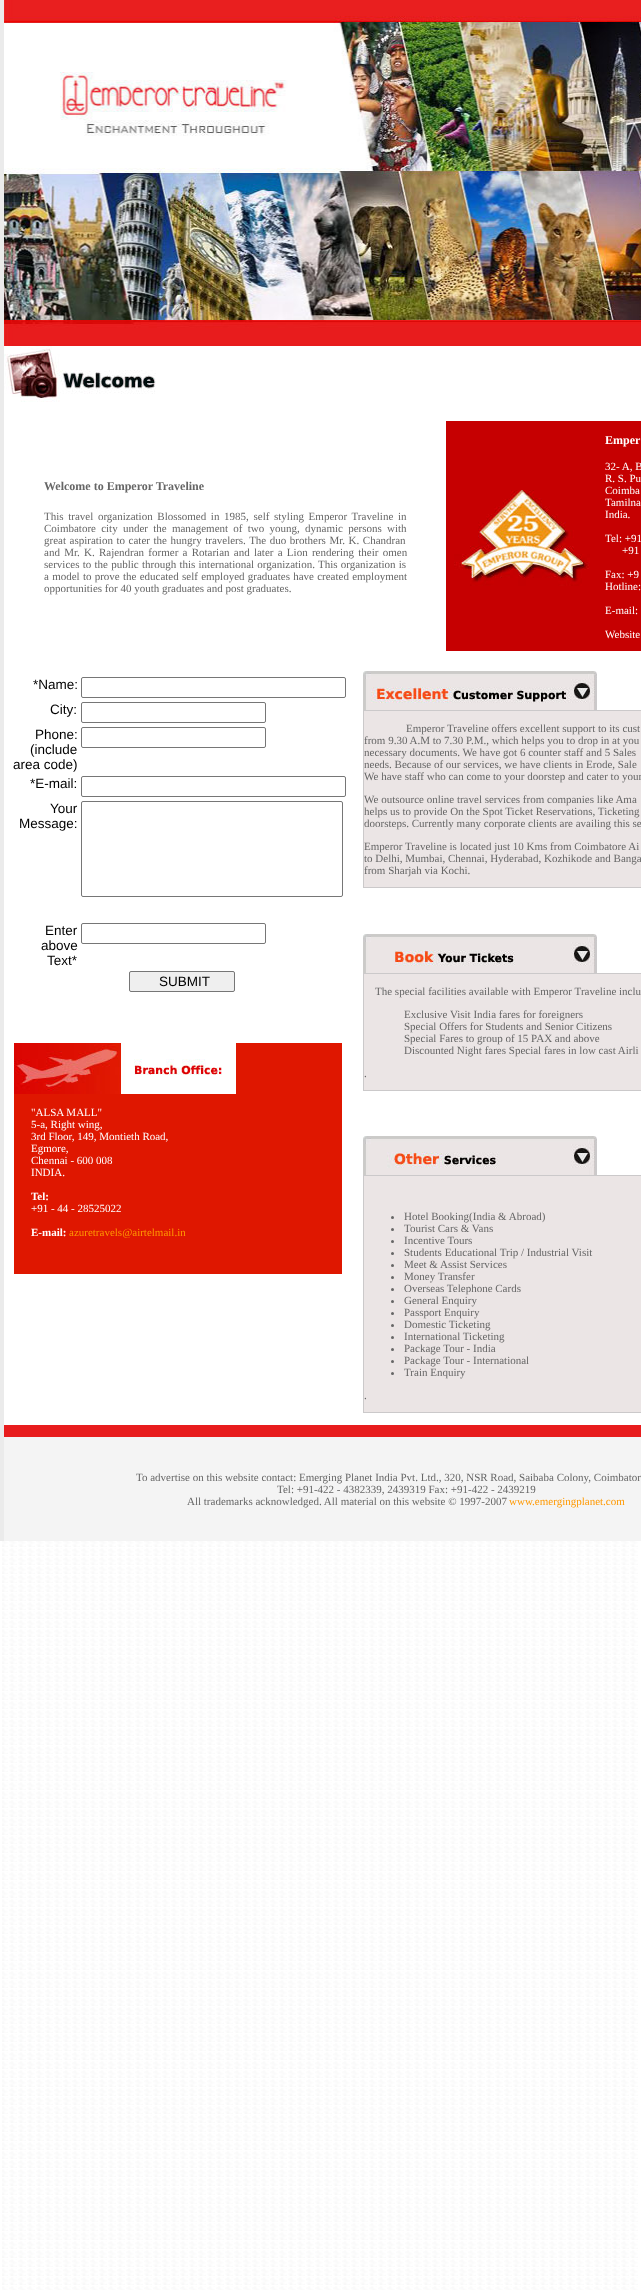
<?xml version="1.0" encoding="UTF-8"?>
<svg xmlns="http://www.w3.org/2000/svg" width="641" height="2290">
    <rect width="100%" height="100%" fill="#FFFFFF"/>
    <image x="2" y="1541" width="636" height="749" href="img_01.png"/>
    <rect x="0" y="0" width="4" height="1541" fill="#EBEBEB"/>
    <image x="4" y="0" width="637" height="346" href="img_02.png"/>
    <image x="4" y="346" width="152" height="56" href="img_03.png"/>
    <text x="44" y="490" font-family="Liberation Serif" font-size="12" font-weight="700" fill="#666666">Welcome to Emperor Traveline</text>
    <text font-family="Liberation Serif" font-size="11" fill="#666666">
        <tspan x="44" y="520" word-spacing="1.9">This travel organization Blossomed in 1985, self styling Emperor Traveline in</tspan>
        <tspan x="44" y="532" word-spacing="2.5">Coimbatore city under the management of two young, dynamic persons with</tspan>
        <tspan x="44" y="544" word-spacing="0.8">great aspiration to cater the hungry travelers. The duo brothers Mr. K. Chandran</tspan>
        <tspan x="44" y="556" word-spacing="1.5">and Mr. K. Rajendran former a Rotarian and later a Lion rendering their omen</tspan>
        <tspan x="44" y="568" word-spacing="0.5">services to the public through this international organization. This organization is</tspan>
        <tspan x="44" y="580" word-spacing="0.5">a model to prove the educated self employed graduates have created employment</tspan>
        <tspan x="44" y="592">opportunities for 40 youth graduates and post graduates.</tspan>
    </text>
    <rect x="446" y="421" width="195" height="230" fill="#C60001"/>
    <image x="454" y="490" width="136" height="96" href="img_04.png"/>
    <text x="605" y="444" font-family="Liberation Serif" font-size="12" font-weight="700" fill="#FFFFFF">Emper</text>
    <text font-family="Liberation Serif" font-size="11" fill="#FFFFFF">
        <tspan x="605" y="470">32- A, B</tspan>
        <tspan x="605" y="482">R. S. Pu</tspan>
        <tspan x="605" y="494">Coimba</tspan>
        <tspan x="605" y="506">Tamilna</tspan>
        <tspan x="605" y="518">India.</tspan>
    </text>
    <text x="605" y="542" font-family="Liberation Serif" font-size="11" fill="#FFFFFF">Tel: +91</text>
    <text x="622" y="554" font-family="Liberation Serif" font-size="11" fill="#FFFFFF">+91</text>
    <text font-family="Liberation Serif" font-size="11" fill="#FFFFFF">
        <tspan x="605" y="578">Fax: +9</tspan>
        <tspan x="605" y="590">Hotline:</tspan>
    </text>
    <text x="605" y="614" font-family="Liberation Serif" font-size="11" fill="#FFFFFF">E-mail:</text>
    <text x="605" y="638" font-family="Liberation Serif" font-size="11" fill="#FFFFFF">Website</text>
    <text x="33" y="689" font-family="Liberation Sans" font-size="13.5" fill="#000000">*Name:</text>
    <rect x="81.5" y="677.5" width="264" height="20" rx="1.5" fill="none" stroke="#767676"/>
    <text x="50" y="714" font-family="Liberation Sans" font-size="13.5" fill="#000000">City:</text>
    <rect x="81.5" y="702.5" width="184" height="20" rx="1.5" fill="none" stroke="#767676"/>
    <text x="35" y="739" font-family="Liberation Sans" font-size="13.5" fill="#000000">Phone:</text>
    <text x="30" y="754" font-family="Liberation Sans" font-size="13.5" fill="#000000">(include</text>
    <text x="13" y="769" font-family="Liberation Sans" font-size="13.5" fill="#000000">area code)</text>
    <rect x="81.5" y="727.5" width="184" height="20" rx="1.5" fill="none" stroke="#767676"/>
    <text x="30" y="788" font-family="Liberation Sans" font-size="13.5" fill="#000000">*E-mail:</text>
    <rect x="81.5" y="776.5" width="264" height="20" rx="1.5" fill="none" stroke="#767676"/>
    <text x="50" y="813" font-family="Liberation Sans" font-size="13.5" fill="#000000">Your</text>
    <text x="19" y="828" font-family="Liberation Sans" font-size="13.5" fill="#000000">Message:</text>
    <rect x="81.5" y="801.5" width="261" height="95" rx="1.5" fill="none" stroke="#767676"/>
    <text x="45" y="935" font-family="Liberation Sans" font-size="13.5" fill="#000000">Enter</text>
    <text x="41" y="950" font-family="Liberation Sans" font-size="13.5" fill="#000000">above</text>
    <text x="47" y="965" font-family="Liberation Sans" font-size="13.5" fill="#000000">Text*</text>
    <rect x="81.5" y="923.5" width="184" height="20" rx="1.5" fill="none" stroke="#767676"/>
    <rect x="129.5" y="971.5" width="105" height="20" rx="1.5" fill="#EFEFEF" stroke="#767676"/>
    <text x="159" y="986" font-family="Liberation Sans" font-size="13.5" fill="#000000">SUBMIT</text>
    <rect x="236" y="1043" width="106" height="51" fill="#DF1700"/>
    <image x="14" y="1043" width="222" height="51" href="img_05.png"/>
    <rect x="14" y="1094" width="328" height="180" fill="#DF1700"/>
    <text font-family="Liberation Serif" font-size="11" fill="#FFFFFF">
        <tspan x="31" y="1116">"ALSA MALL"</tspan>
        <tspan x="31" y="1128">5-a, Right wing,</tspan>
        <tspan x="31" y="1140">3rd Floor, 149, Montieth Road,</tspan>
        <tspan x="31" y="1152">Egmore,</tspan>
        <tspan x="31" y="1164">Chennai - 600 008</tspan>
        <tspan x="31" y="1176">INDIA.</tspan>
    </text>
    <text x="31" y="1200" font-family="Liberation Serif" font-size="11" font-weight="700" fill="#FFFFFF">Tel:</text>
    <text x="31" y="1212" font-family="Liberation Serif" font-size="11" fill="#FFFFFF">+91 - 44 - 28525022</text>
    <text x="31" y="1236" font-family="Liberation Serif" font-size="11" font-weight="700" fill="#FFFFFF">E-mail:</text>
    <text x="69" y="1236" font-family="Liberation Serif" font-size="11" fill="#FF9900">azuretravels@airtelmail.in</text>
    <image x="363" y="671" width="234" height="39" href="img_06.png"/>
    <rect x="363.5" y="710.5" width="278" height="177" fill="#EBE5E5" stroke="#CBC9CA"/>
    <text x="406" y="732" font-family="Liberation Serif" font-size="11" fill="#666666">Emperor Traveline offers excellent support to its cust</text>
    <text font-family="Liberation Serif" font-size="11" fill="#666666">
        <tspan x="364" y="744">from 9.30 A.M to 7.30 P.M., which helps you to drop in at you</tspan>
        <tspan x="364" y="756">necessary documents. We have got 6 counter staff and 5 Sales</tspan>
        <tspan x="364" y="768">needs. Because of our services, we have clients in Erode, Sale</tspan>
        <tspan x="364" y="780">We have staff who can come to your doorstep and cater to your</tspan>
    </text>
    <text font-family="Liberation Serif" font-size="11" fill="#666666">
        <tspan x="364" y="803">We outsource online travel services from companies like Ama</tspan>
        <tspan x="364" y="815">helps us to provide On the Spot Ticket Reservations, Ticketing</tspan>
        <tspan x="364" y="827">doorsteps. Currently many corporate clients are availing this se</tspan>
    </text>
    <text font-family="Liberation Serif" font-size="11" fill="#666666">
        <tspan x="364" y="850">Emperor Traveline is located just 10 Kms from Coimbatore Ai</tspan>
        <tspan x="364" y="862">to Delhi, Mumbai, Chennai, Hyderabad, Kozhikode and Banga</tspan>
        <tspan x="364" y="874">from Sharjah via Kochi.</tspan>
    </text>
    <image x="363" y="934" width="234" height="39" href="img_07.png"/>
    <rect x="363.5" y="973.5" width="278" height="117" fill="#EBE5E5" stroke="#CBC9CA"/>
    <text x="375" y="995" font-family="Liberation Serif" font-size="11" fill="#666666">The special facilities available with Emperor Traveline inclu</text>
    <text font-family="Liberation Serif" font-size="11" fill="#666666">
        <tspan x="404" y="1018">Exclusive Visit India fares for foreigners</tspan>
        <tspan x="404" y="1030">Special Offers for Students and Senior Citizens</tspan>
        <tspan x="404" y="1042">Special Fares to group of 15 PAX and above</tspan>
        <tspan x="404" y="1054">Discounted Night fares Special fares in low cast Airli</tspan>
    </text>
    <text x="364" y="1077" font-family="Liberation Serif" font-size="11" fill="#666666">.</text>
    <image x="363" y="1136" width="234" height="39" href="img_08.png"/>
    <rect x="363.5" y="1175.5" width="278" height="237" fill="#EBE5E5" stroke="#CBC9CA"/>
    <circle cx="392.5" cy="1217.5" r="1.5" fill="#666666"/>
    <text x="404" y="1220" font-family="Liberation Serif" font-size="11" fill="#666666">Hotel Booking(India &amp; Abroad)</text>
    <circle cx="392.5" cy="1229.5" r="1.5" fill="#666666"/>
    <text x="404" y="1232" font-family="Liberation Serif" font-size="11" fill="#666666">Tourist Cars &amp; Vans</text>
    <circle cx="392.5" cy="1241.5" r="1.5" fill="#666666"/>
    <text x="404" y="1244" font-family="Liberation Serif" font-size="11" fill="#666666">Incentive Tours</text>
    <circle cx="392.5" cy="1253.5" r="1.5" fill="#666666"/>
    <text x="404" y="1256" font-family="Liberation Serif" font-size="11" fill="#666666">Students Educational Trip / Industrial Visit</text>
    <circle cx="392.5" cy="1265.5" r="1.5" fill="#666666"/>
    <text x="404" y="1268" font-family="Liberation Serif" font-size="11" fill="#666666">Meet &amp; Assist Services</text>
    <circle cx="392.5" cy="1277.5" r="1.5" fill="#666666"/>
    <text x="404" y="1280" font-family="Liberation Serif" font-size="11" fill="#666666">Money Transfer</text>
    <circle cx="392.5" cy="1289.5" r="1.5" fill="#666666"/>
    <text x="404" y="1292" font-family="Liberation Serif" font-size="11" fill="#666666">Overseas Telephone Cards</text>
    <circle cx="392.5" cy="1301.5" r="1.5" fill="#666666"/>
    <text x="404" y="1304" font-family="Liberation Serif" font-size="11" fill="#666666">General Enquiry</text>
    <circle cx="392.5" cy="1313.5" r="1.5" fill="#666666"/>
    <text x="404" y="1316" font-family="Liberation Serif" font-size="11" fill="#666666">Passport Enquiry</text>
    <circle cx="392.5" cy="1325.5" r="1.5" fill="#666666"/>
    <text x="404" y="1328" font-family="Liberation Serif" font-size="11" fill="#666666">Domestic Ticketing</text>
    <circle cx="392.5" cy="1337.5" r="1.5" fill="#666666"/>
    <text x="404" y="1340" font-family="Liberation Serif" font-size="11" fill="#666666">International Ticketing</text>
    <circle cx="392.5" cy="1349.5" r="1.5" fill="#666666"/>
    <text x="404" y="1352" font-family="Liberation Serif" font-size="11" fill="#666666">Package Tour - India</text>
    <circle cx="392.5" cy="1361.5" r="1.5" fill="#666666"/>
    <text x="404" y="1364" font-family="Liberation Serif" font-size="11" fill="#666666">Package Tour - International</text>
    <circle cx="392.5" cy="1373.5" r="1.5" fill="#666666"/>
    <text x="404" y="1376" font-family="Liberation Serif" font-size="11" fill="#666666">Train Enquiry</text>
    <text x="364" y="1399" font-family="Liberation Serif" font-size="11" fill="#666666">.</text>
    <rect x="4" y="1425" width="637" height="12" fill="#E81C1D"/>
    <rect x="4" y="1437" width="637" height="104" fill="#F4F4F4"/>
    <text x="136" y="1481" font-family="Liberation Serif" font-size="11" fill="#666666">To advertise on this website contact: Emerging Planet India Pvt. Ltd., 320, NSR Road, Saibaba Colony, Coimbator</text>
    <text x="277" y="1493" font-family="Liberation Serif" font-size="11" fill="#666666">Tel: +91-422 - 4382339, 2439319 Fax: +91-422 - 2439219</text>
    <text x="187" y="1505" font-family="Liberation Serif" font-size="11" fill="#666666">All trademarks acknowledged. All material on this website © 1997-2007</text>
    <text x="509" y="1505" font-family="Liberation Serif" font-size="11" fill="#FF9900">www.emergingplanet.com</text>
</svg>
